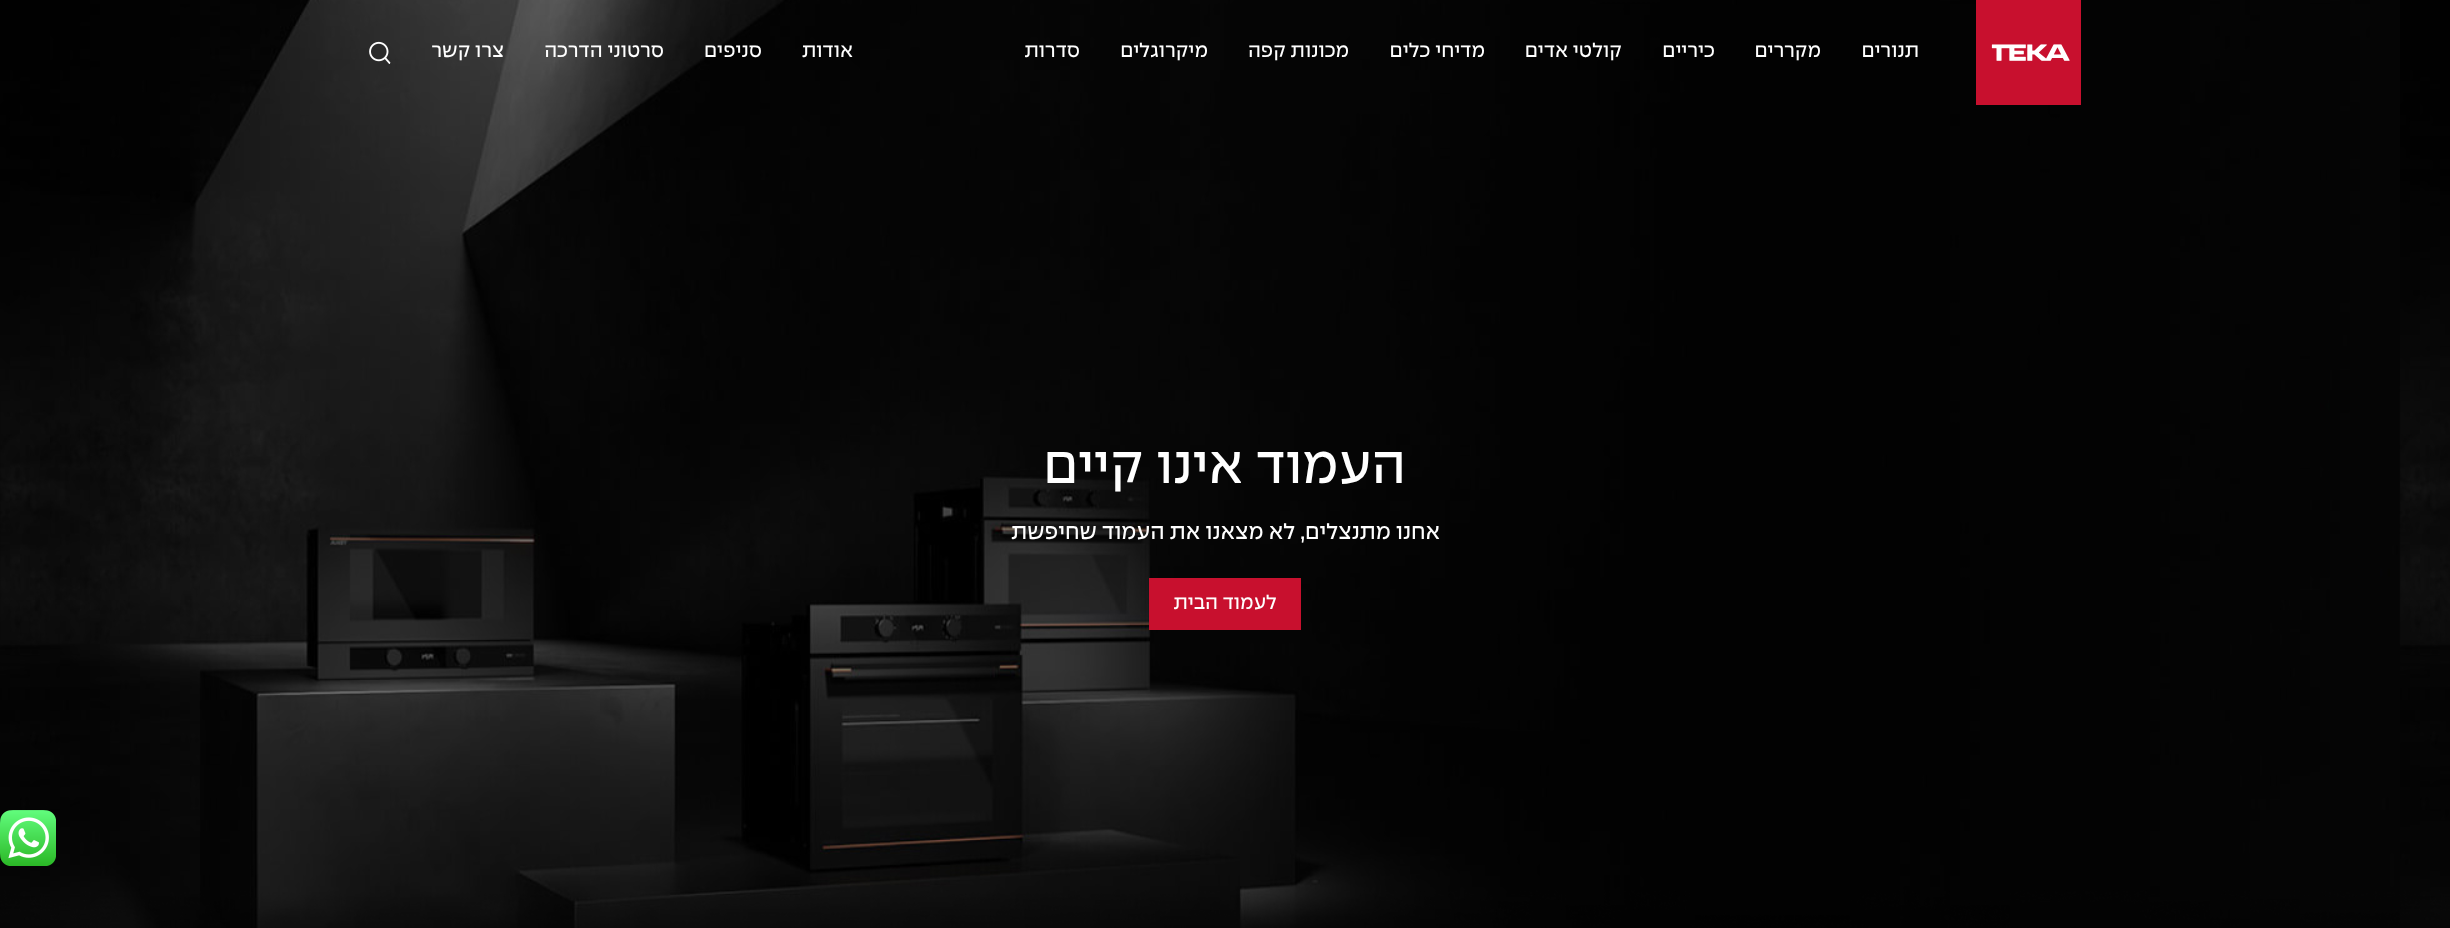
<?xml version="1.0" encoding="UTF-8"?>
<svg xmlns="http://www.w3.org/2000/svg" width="2450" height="928">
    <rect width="100%" height="100%" fill="#FFFFFF"/>
    <image x="0" y="0" width="2450" height="928" href="img_03.png"/>
    <image x="1976" y="0" width="105" height="105" href="img_01.png"/>
    <text x="1919" y="57" font-family="'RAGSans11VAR'" font-size="22.5" direction="rtl" fill="#FFFFFF">תנורים</text>
    <text x="1821" y="57" font-family="'RAGSans11VAR'" font-size="22.5" direction="rtl" fill="#FFFFFF">מקררים</text>
    <text x="1715" y="57" font-family="'RAGSans11VAR'" font-size="22.5" direction="rtl" fill="#FFFFFF">כיריים</text>
    <text x="1622" y="57" font-family="'RAGSans11VAR'" font-size="22.5" direction="rtl" fill="#FFFFFF">קולטי אדים</text>
    <text x="1485" y="57" font-family="'RAGSans11VAR'" font-size="22.5" direction="rtl" fill="#FFFFFF">מדיחי כלים</text>
    <text x="1349" y="57" font-family="'RAGSans11VAR'" font-size="22.5" direction="rtl" fill="#FFFFFF">מכונות קפה</text>
    <text x="1208" y="57" font-family="'RAGSans11VAR'" font-size="22.5" direction="rtl" fill="#FFFFFF">מיקרוגלים</text>
    <text x="1080" y="57" font-family="'RAGSans11VAR'" font-size="22.5" direction="rtl" fill="#FFFFFF">סדרות</text>
    <text x="853" y="57" font-family="'RAGSans11VAR'" font-size="22.5" direction="rtl" fill="#FFFFFF">אודות</text>
    <text x="762" y="57" font-family="'RAGSans11VAR'" font-size="22.5" direction="rtl" fill="#FFFFFF">סניפים</text>
    <text x="664" y="57" font-family="'RAGSans11VAR'" font-size="22.5" direction="rtl" fill="#FFFFFF">סרטוני הדרכה</text>
    <text x="504" y="57" font-family="'RAGSans11VAR'" font-size="22.5" direction="rtl" fill="#FFFFFF">צרו קשר</text>
    <image x="369" y="41" width="22" height="23" href="img_02.png"/>
    <text x="1406" y="483" font-family="'RAGSans11VAR'" font-size="60" direction="rtl" fill="#FFFFFF">העמוד אינו קיים</text>
    <text x="1440" y="539" font-family="'RAGSans11VAR'" font-size="25" direction="rtl" fill="#FFFFFF">אחנו מתנצלים, לא מצאנו את העמוד שחיפשת</text>
    <rect x="1149" y="578" width="152" height="52" fill="#C8102E"/>
    <text x="1277" y="609" font-family="'RAGSans11VAR'" font-size="22.5" direction="rtl" fill="#FFFFFF">לעמוד הבית</text>
    <image x="0" y="810" width="56" height="56" href="img_04.png"/>
</svg>
